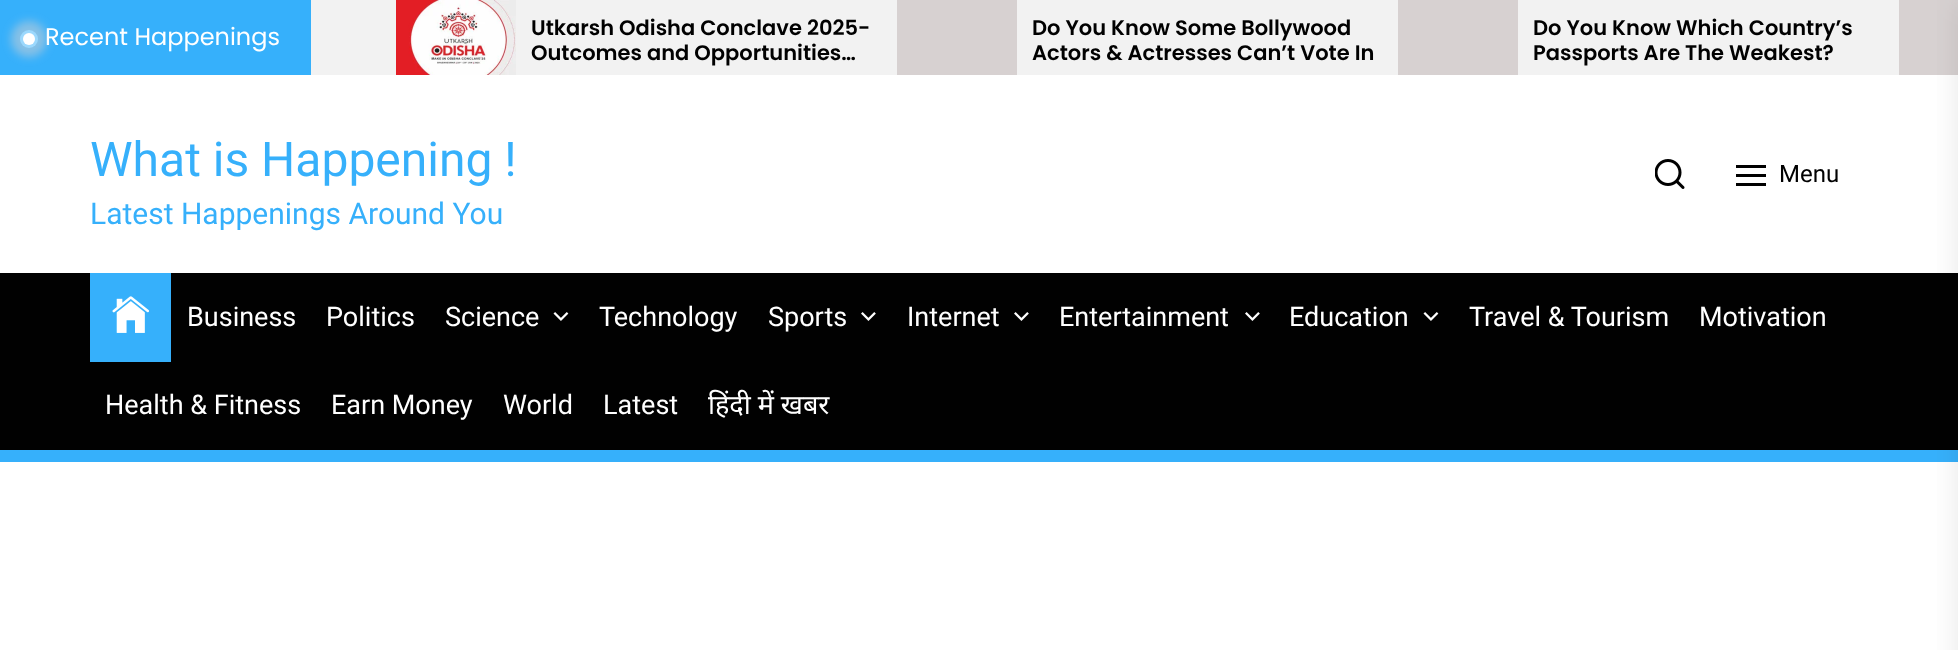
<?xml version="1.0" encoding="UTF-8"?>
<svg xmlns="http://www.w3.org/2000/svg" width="1958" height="650">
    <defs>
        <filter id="blur1" x="-50%" y="-200%" width="200%" height="500%"><feGaussianBlur stdDeviation="4.5"/></filter>
        <filter id="blur2" x="-50%" y="-200%" width="200%" height="500%"><feGaussianBlur stdDeviation="15"/></filter>
    </defs>
    <rect width="100%" height="100%" fill="#FFFFFF"/>
    <rect x="311" y="0" width="1588" height="75" fill="#F2F2F2"/>
    <rect x="0" y="0" width="311" height="75" fill="#36B0FB"/>
    <rect x="11" y="21" width="36" height="36" rx="18" fill="#D7D1D1" fill-opacity="0.5" filter="url(#blur1)"/>
    <circle cx="29" cy="39" r="9" fill="#9BD8FD"/>
    <text x="45" y="45" font-family="Poppins" font-size="24" fill="#FFFFFF">Recent Happenings</text>
    <circle cx="29" cy="39" r="6" fill="#FFFFFF"/>
    <image x="396" y="0" width="120" height="75" href="img_01.png"/>
    <text font-family="Poppins" font-size="21" font-weight="600" fill="#010101">
        <tspan x="531" y="35">Utkarsh Odisha Conclave 2025-</tspan>
        <tspan x="531" y="60">Outcomes and Opportunities…</tspan>
    </text>
    <rect x="897" y="0" width="120" height="75" fill="#D7D1D1"/>
    <text font-family="Poppins" font-size="21" font-weight="600" fill="#010101">
        <tspan x="1032" y="35">Do You Know Some Bollywood</tspan>
        <tspan x="1032" y="60">Actors &amp; Actresses Can’t Vote In</tspan>
    </text>
    <rect x="1398" y="0" width="120" height="75" fill="#D7D1D1"/>
    <text font-family="Poppins" font-size="21" font-weight="600" fill="#010101">
        <tspan x="1533" y="35">Do You Know Which Country’s</tspan>
        <tspan x="1533" y="60">Passports Are The Weakest?</tspan>
    </text>
    <rect x="1899" y="0" width="59" height="75" fill="#D7D1D1"/>
    <rect x="0" y="273" width="1958" height="177" fill="#010101"/>
    <rect x="0" y="450" width="1958" height="12" fill="#36B0FB"/>
    <rect x="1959" y="0" width="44" height="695" fill="#000000" fill-opacity="0.1" filter="url(#blur2)"/>
    <text x="90" y="176" font-family="Roboto" font-size="48" fill="#36B0FB">What is Happening !</text>
    <text x="90" y="224" font-family="Roboto" font-size="30" fill="#36B0FB">Latest Happenings Around You</text>
    <image x="1655" y="159" width="30" height="30" href="img_02.png"/>
    <rect x="1736" y="165" width="30" height="3" fill="#000000"/>
    <rect x="1736" y="174" width="30" height="3" fill="#000000"/>
    <rect x="1736" y="183" width="30" height="3" fill="#000000"/>
    <text x="1779" y="182" font-family="Roboto" font-size="24" fill="#010101">Menu</text>
    <rect x="90" y="273" width="81" height="89" fill="#36B0FB"/>
    <image x="112" y="296" width="37" height="37" href="img_03.png"/>
    <text x="187" y="326" font-family="Roboto" font-size="27" fill="#FFFFFF">Business</text>
    <text x="326" y="326" font-family="Roboto" font-size="27" fill="#FFFFFF">Politics</text>
    <text x="445" y="326" font-family="Roboto" font-size="27" fill="#FFFFFF">Science</text>
    <image x="553" y="312" width="16" height="9" href="img_04.png"/>
    <text x="599" y="326" font-family="Roboto" font-size="27" fill="#FFFFFF">Technology</text>
    <text x="768" y="326" font-family="Roboto" font-size="27" fill="#FFFFFF">Sports</text>
    <image x="861" y="312" width="15" height="9" href="img_05.png"/>
    <text x="907" y="326" font-family="Roboto" font-size="27" fill="#FFFFFF">Internet</text>
    <image x="1014" y="312" width="15" height="9" href="img_05.png"/>
    <text x="1059" y="326" font-family="Roboto" font-size="27" fill="#FFFFFF">Entertainment</text>
    <image x="1245" y="312" width="15" height="9" href="img_05.png"/>
    <text x="1289" y="326" font-family="Roboto" font-size="27" fill="#FFFFFF">Education</text>
    <image x="1423" y="312" width="16" height="9" href="img_04.png"/>
    <text x="1469" y="326" font-family="Roboto" font-size="27" fill="#FFFFFF">Travel &amp; Tourism</text>
    <text x="1699" y="326" font-family="Roboto" font-size="27" fill="#FFFFFF">Motivation</text>
    <text x="105" y="414" font-family="Roboto" font-size="27" fill="#FFFFFF">Health &amp; Fitness</text>
    <text x="331" y="414" font-family="Roboto" font-size="27" fill="#FFFFFF">Earn Money</text>
    <text x="503" y="414" font-family="Roboto" font-size="27" fill="#FFFFFF">World</text>
    <text x="603" y="414" font-family="Roboto" font-size="27" fill="#FFFFFF">Latest</text>
    <text x="708" y="414" font-family="Noto Sans" font-size="27" fill="#FFFFFF">हिंदी में खबर</text>
</svg>
